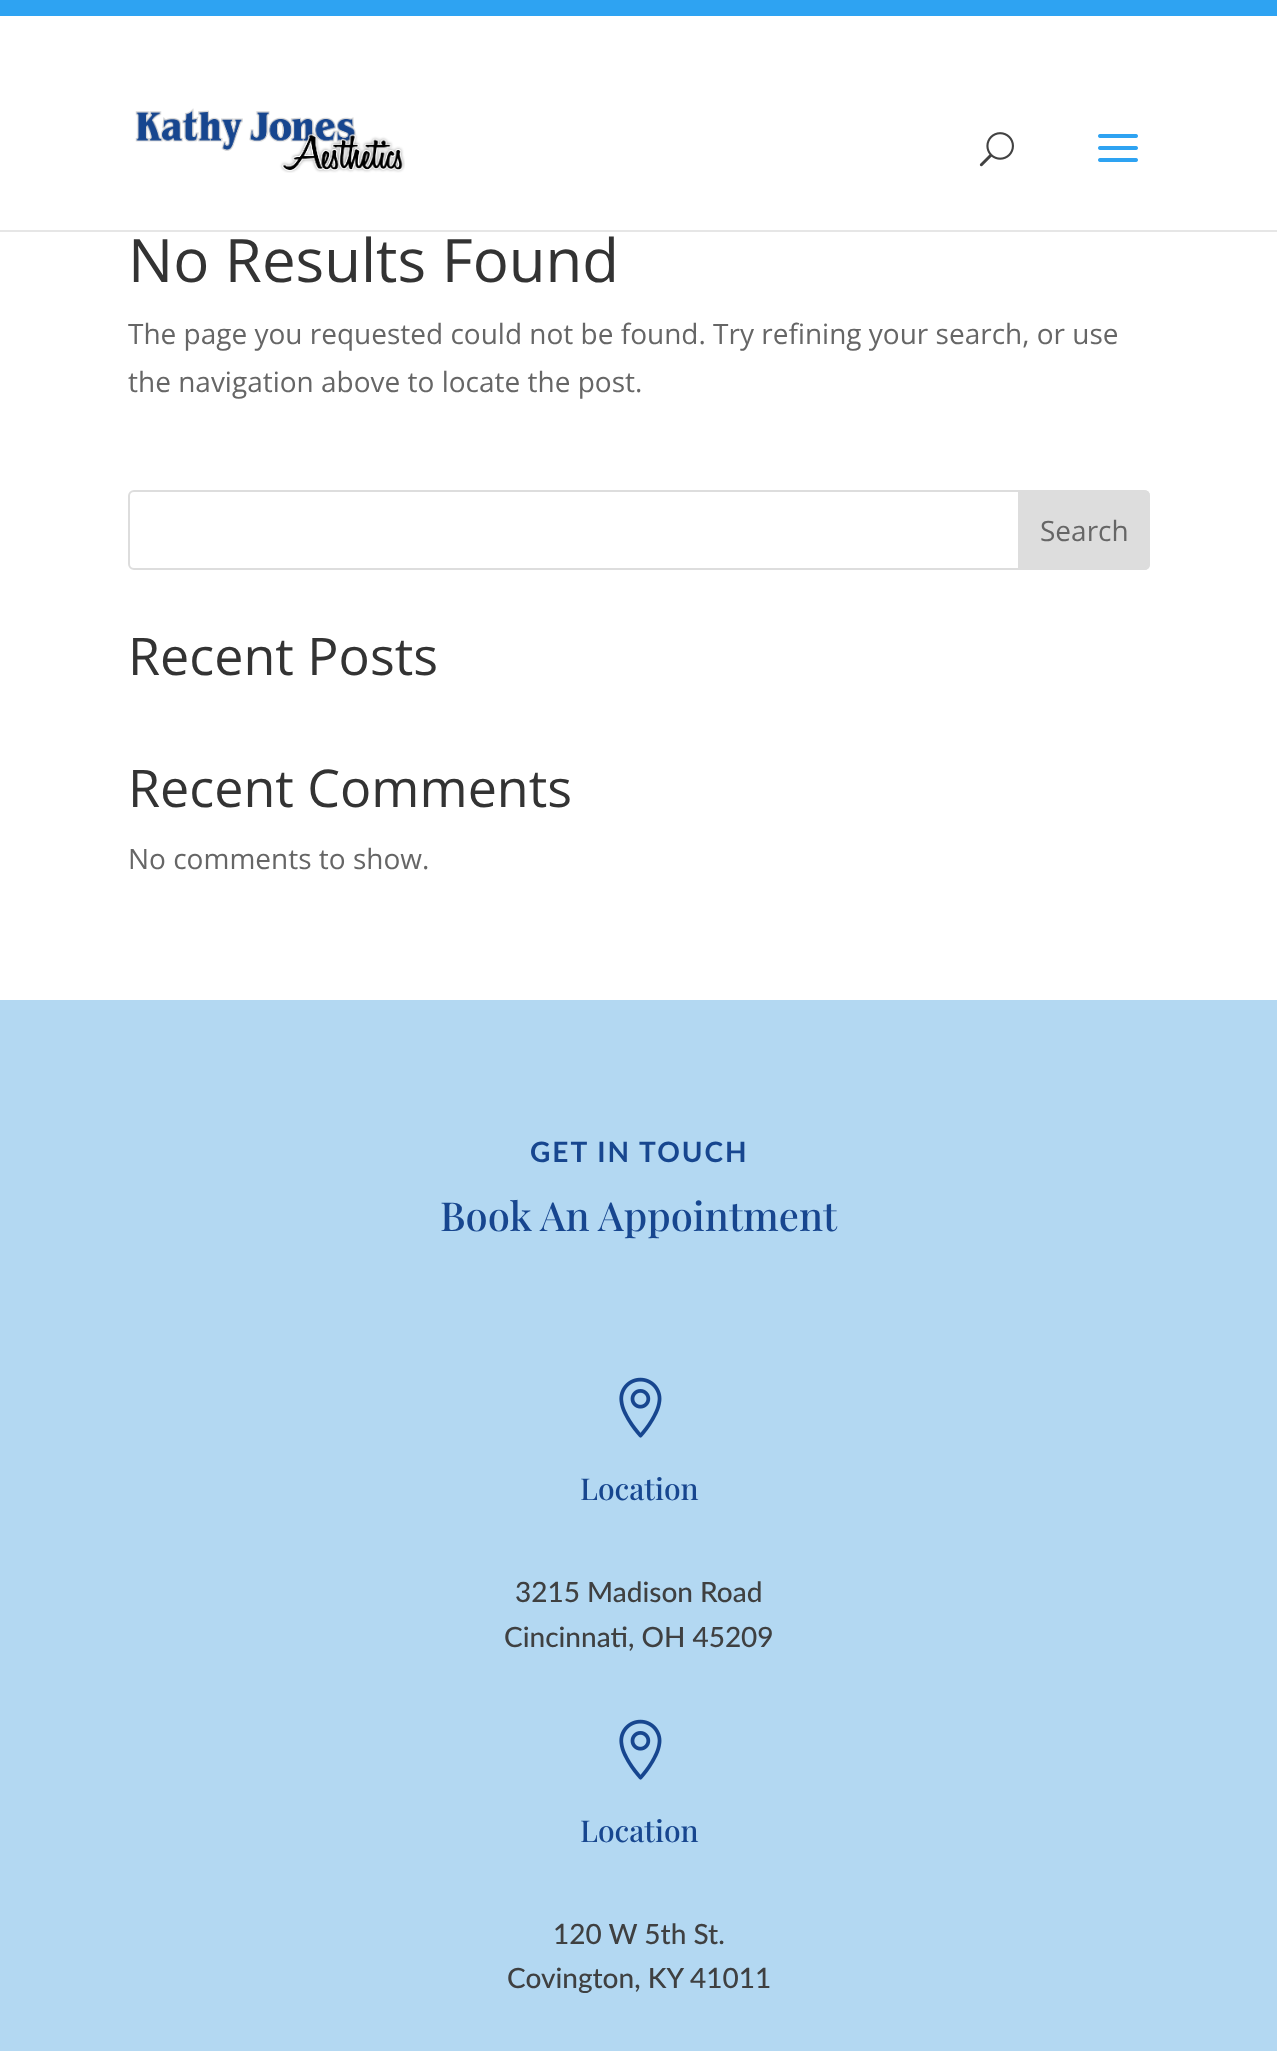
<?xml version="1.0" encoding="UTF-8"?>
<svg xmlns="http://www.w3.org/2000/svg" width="1277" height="2051">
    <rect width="100%" height="100%" fill="#FFFFFF"/>
    <rect x="0" y="0" width="1277" height="16" fill="#2EA3F2"/>
    <rect x="0" y="230" width="1277" height="2" fill="#E6E6E6"/>
    <image x="135" y="108" width="270" height="65" href="img_01.png"/>
    <image x="979" y="132" width="35" height="35" href="img_02.png"/>
    <image x="1098" y="134" width="40" height="28" href="img_03.png"/>
    <text x="128" y="282" font-family="Open Sans" font-size="60" fill="#333333">No Results Found</text>
    <text font-family="Open Sans" font-size="28" fill="#666666">
        <tspan x="128" y="344">The page you requested could not be found. Try refining your search, or use</tspan>
        <tspan x="128" y="392">the navigation above to locate the post.</tspan>
    </text>
    <rect x="129" y="491" width="1020" height="78" rx="5" fill="none" stroke="#DDDDDD" stroke-width="2"/>
    <path d="M 1019 491 H 1144 C 1147 491 1149 493 1149 496 V 564 C 1149 567 1147 569 1144 569 H 1019 Z" fill="#DDDDDD" stroke="#DDDDDD" stroke-width="2"/>
    <text x="1040" y="541" font-family="Open Sans" font-size="28" fill="#666666">Search</text>
    <text x="128" y="675" font-family="Open Sans" font-size="52" fill="#333333">Recent Posts</text>
    <text x="128" y="807" font-family="Open Sans" font-size="52" fill="#333333">Recent Comments</text>
    <text x="128" y="869" font-family="Open Sans" font-size="28" fill="#666666">No comments to show.</text>
    <rect x="0" y="1000" width="1277" height="1051" fill="#B3D8F2"/>
    <text x="530" y="1162" font-family="Lato" font-size="28" font-weight="700" letter-spacing="2" fill="#17468F">GET IN TOUCH</text>
    <text x="440" y="1231" font-family="Playfair Display" font-size="40" font-weight="500" fill="#17468F">Book An Appointment</text>
    <image x="619" y="1377" width="43" height="61" href="img_04.png"/>
    <text x="580" y="1500" font-family="Playfair Display" font-size="30" font-weight="500" fill="#17468F">Location</text>
    <text x="515" y="1602" font-family="Lato" font-size="28" font-weight="500" fill="#3F4041">3215 Madison Road</text>
    <text x="504" y="1647" font-family="Lato" font-size="28" font-weight="500" fill="#3F4041">Cincinnati, OH 45209</text>
    <image x="619" y="1719" width="43" height="61" href="img_04.png"/>
    <text x="580" y="1842" font-family="Playfair Display" font-size="30" font-weight="500" fill="#17468F">Location</text>
    <text x="553" y="1944" font-family="Lato" font-size="28" font-weight="500" fill="#3F4041">120 W 5th St.</text>
    <text x="507" y="1988" font-family="Lato" font-size="28" font-weight="500" fill="#3F4041">Covington, KY 41011</text>
</svg>
